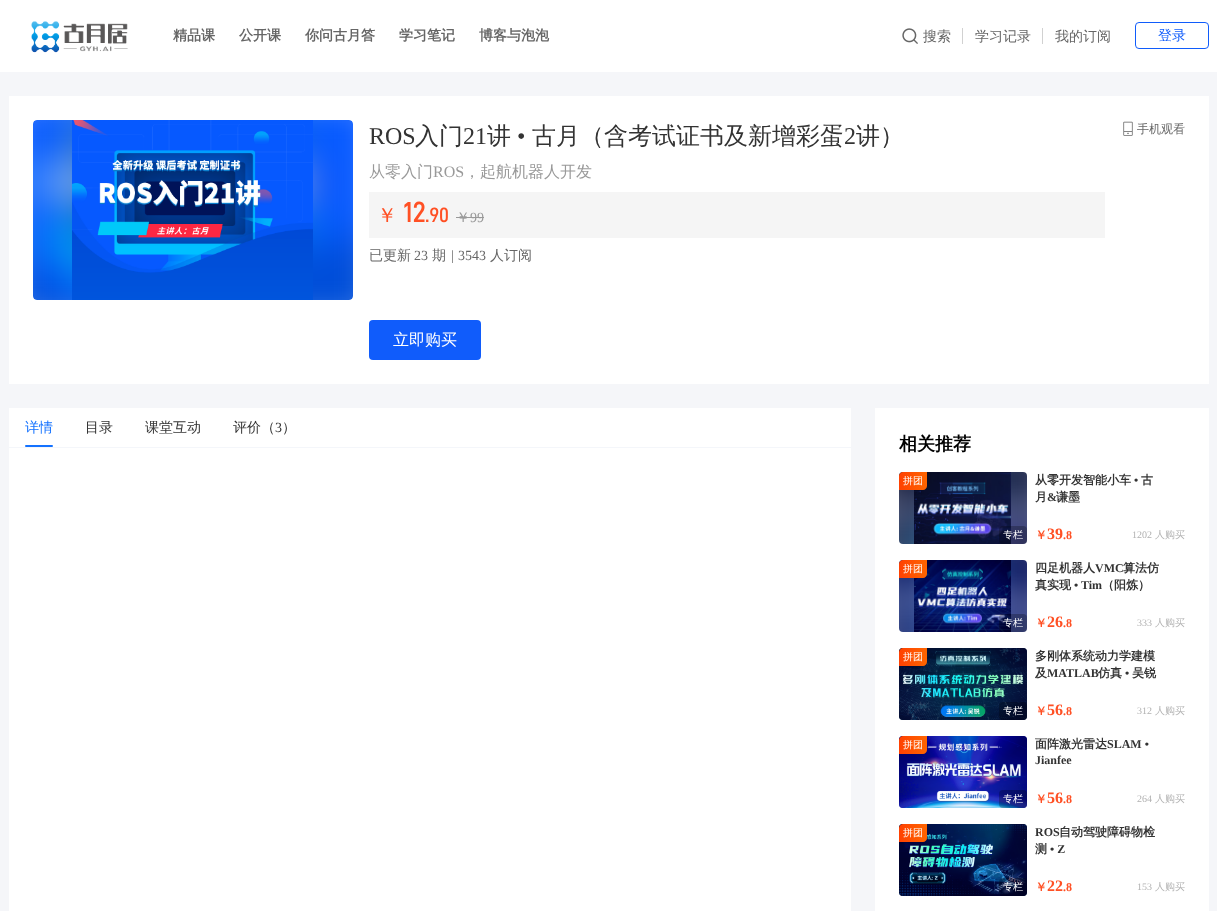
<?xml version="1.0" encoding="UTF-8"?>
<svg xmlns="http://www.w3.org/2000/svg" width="1217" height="911">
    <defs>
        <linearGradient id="g1" gradientUnits="userSpaceOnUse" x1="927" y1="481" x2="899" y2="481"><stop offset="0" stop-color="#FE6500"/><stop offset="1" stop-color="#FF4102"/></linearGradient>
        <linearGradient id="g2" gradientUnits="userSpaceOnUse" x1="927" y1="569" x2="899" y2="569"><stop offset="0" stop-color="#FE6500"/><stop offset="1" stop-color="#FF4102"/></linearGradient>
        <linearGradient id="g3" gradientUnits="userSpaceOnUse" x1="927" y1="657" x2="899" y2="657"><stop offset="0" stop-color="#FE6500"/><stop offset="1" stop-color="#FF4102"/></linearGradient>
        <linearGradient id="g4" gradientUnits="userSpaceOnUse" x1="927" y1="745" x2="899" y2="745"><stop offset="0" stop-color="#FE6500"/><stop offset="1" stop-color="#FF4102"/></linearGradient>
        <linearGradient id="g5" gradientUnits="userSpaceOnUse" x1="927" y1="833" x2="899" y2="833"><stop offset="0" stop-color="#FE6500"/><stop offset="1" stop-color="#FF4102"/></linearGradient>
    </defs>
    <rect width="100%" height="100%" fill="#F5F6F9"/>
    <rect x="0" y="0" width="1217" height="72" fill="#FFFFFF"/>
    <image x="31" y="21" width="97" height="32" href="img_01.png"/>
    <text x="173" y="40" font-family="WenQuanYi Zen Hei" font-size="14" font-weight="700" fill="#666666">精品课</text>
    <text x="239" y="40" font-family="WenQuanYi Zen Hei" font-size="14" font-weight="700" fill="#666666">公开课</text>
    <text x="305" y="40" font-family="WenQuanYi Zen Hei" font-size="14" font-weight="700" fill="#666666">你问古月答</text>
    <text x="399" y="40" font-family="WenQuanYi Zen Hei" font-size="14" font-weight="700" fill="#666666">学习笔记</text>
    <text x="479" y="40" font-family="WenQuanYi Zen Hei" font-size="14" font-weight="700" fill="#666666">博客与泡泡</text>
    <image x="902" y="28" width="16" height="16" href="img_02.png"/>
    <text x="923" y="41" font-family="WenQuanYi Zen Hei" font-size="14" font-weight="500" fill="#666666">搜索</text>
    <rect x="962" y="28" width="1" height="16" fill="#D1D1D1"/>
    <text x="975" y="41" font-family="WenQuanYi Zen Hei" font-size="14" font-weight="500" fill="#666666">学习记录</text>
    <rect x="1042" y="28" width="1" height="16" fill="#D1D1D1"/>
    <text x="1055" y="41" font-family="WenQuanYi Zen Hei" font-size="14" font-weight="500" fill="#666666">我的订阅</text>
    <rect x="1135.5" y="22.5" width="73" height="26" rx="3.5" fill="none" stroke="#105CFB"/>
    <text x="1158" y="40" font-family="WenQuanYi Zen Hei" font-size="14" font-weight="500" fill="#105CFB">登录</text>
    <rect x="9" y="96" width="1200" height="288" fill="#FFFFFF"/>
    <rect x="33" y="120" width="320" height="180" rx="4" fill="#F5F5F5"/>
    <image x="33" y="120" width="320" height="180" href="img_03.png"/>
    <image x="72" y="120" width="241" height="180" href="img_04.png"/>
    <text x="369" y="144" font-family="Liberation Serif" font-size="24" fill="#333333">ROS</text>
    <text x="415" y="144" font-family="WenQuanYi Zen Hei" font-size="24" font-weight="500" fill="#333333">入门</text>
    <text x="463" y="144" font-family="Liberation Serif" font-size="24" fill="#333333">21</text>
    <text x="487" y="144" font-family="WenQuanYi Zen Hei" font-size="24" font-weight="500" fill="#333333">讲</text>
    <text x="517" y="144" font-family="Liberation Serif" font-size="24" fill="#333333">•</text>
    <text x="532" y="144" font-family="WenQuanYi Zen Hei" font-size="24" font-weight="500" fill="#333333">古月（含考试证书及新增彩蛋</text>
    <text x="844" y="144" font-family="Liberation Serif" font-size="24" fill="#333333">2</text>
    <text x="856" y="144" font-family="WenQuanYi Zen Hei" font-size="24" font-weight="500" fill="#333333">讲）</text>
    <text x="369" y="177" font-family="WenQuanYi Zen Hei" font-size="16" font-weight="500" fill="#999999">从零入门</text>
    <text x="433" y="177" font-family="Liberation Serif" font-size="16" fill="#999999">ROS</text>
    <text x="464" y="177" font-family="WenQuanYi Zen Hei" font-size="16" font-weight="500" fill="#999999">，起航机器人开发</text>
    <rect x="369" y="192" width="736" height="46" fill="#F5F5F5"/>
    <text x="377" y="222" font-family="WenQuanYi Zen Hei" font-size="20" font-weight="500" fill="#FF5024">￥</text>
    <text x="403" y="222" font-family="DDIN" font-size="28" font-weight="700" fill="#FF5024">12</text>
    <text x="425" y="222" font-family="DDIN" font-size="20" font-weight="700" fill="#FF5024">.90</text>
    <text x="456" y="222" font-family="WenQuanYi Zen Hei" font-size="14" font-weight="500" fill="#999999">￥</text>
    <text x="470" y="222" font-family="Liberation Serif" font-size="14" fill="#999999">99</text>
    <rect x="456" y="217" width="28" height="1" fill="#999999"/>
    <text x="369" y="260" font-family="WenQuanYi Zen Hei" font-size="14" font-weight="500" fill="#666666">已更新</text>
    <text x="414" y="260" font-family="Liberation Serif" font-size="14" fill="#666666">23</text>
    <text x="432" y="260" font-family="WenQuanYi Zen Hei" font-size="14" font-weight="500" fill="#666666">期</text>
    <text x="451" y="260" font-family="Liberation Serif" font-size="14" fill="#666666">|</text>
    <text x="458" y="260" font-family="Liberation Serif" font-size="14" fill="#666666">3543</text>
    <text x="490" y="260" font-family="WenQuanYi Zen Hei" font-size="14" font-weight="500" fill="#666666">人订阅</text>
    <rect x="369" y="320" width="112" height="40" rx="4" fill="#105CFB"/>
    <text x="393" y="345" font-family="WenQuanYi Zen Hei" font-size="16" font-weight="500" fill="#FFFFFF">立即购买</text>
    <image x="1123" y="121" width="10" height="15" href="img_05.png"/>
    <text x="1137" y="133" font-family="WenQuanYi Zen Hei" font-size="12" font-weight="500" fill="#666666">手机观看</text>
    <rect x="9" y="408" width="842" height="503" fill="#FFFFFF"/>
    <text x="25" y="432" font-family="WenQuanYi Zen Hei" font-size="14" font-weight="500" fill="#1472FF">详情</text>
    <text x="85" y="432" font-family="WenQuanYi Zen Hei" font-size="14" font-weight="500" fill="#333333">目录</text>
    <text x="145" y="432" font-family="WenQuanYi Zen Hei" font-size="14" font-weight="500" fill="#333333">课堂互动</text>
    <text x="233" y="432" font-family="WenQuanYi Zen Hei" font-size="14" font-weight="500" fill="#333333">评价（</text>
    <text x="275" y="432" font-family="Liberation Serif" font-size="14" fill="#333333">3</text>
    <text x="282" y="432" font-family="WenQuanYi Zen Hei" font-size="14" font-weight="500" fill="#333333">）</text>
    <rect x="25" y="445" width="28" height="2" rx="1" fill="#1472FF"/>
    <rect x="9" y="447" width="842" height="1" fill="#F4F6FA"/>
    <rect x="875" y="408" width="334" height="503" fill="#FFFFFF"/>
    <text x="899" y="450" font-family="WenQuanYi Zen Hei" font-size="18" font-weight="700" fill="#000000">相关推荐</text>
    <image x="899" y="472" width="128" height="72" href="img_06.png"/>
    <image x="914" y="472" width="97" height="72" href="img_07.png"/>
    <path d="M 903 472 H 927 V 486 C 927 488 925 490 923 490 H 899 V 476 C 899 474 901 472 903 472 Z" fill="url(#g1)"/>
    <text x="903" y="484" font-family="WenQuanYi Zen Hei" font-size="10" font-weight="500" fill="#FFFFFF">拼团</text>
    <rect x="999" y="526" width="28" height="18" rx="4" fill="#000000" fill-opacity="0.25"/>
    <text x="1003" y="538" font-family="WenQuanYi Zen Hei" font-size="10" font-weight="500" fill="#FFFFFF">专栏</text>
    <text x="1035" y="484" font-family="WenQuanYi Zen Hei" font-size="12" font-weight="700" fill="#333333">从零开发智能小车</text>
    <text x="1134" y="484" font-family="Liberation Serif" font-size="12" font-weight="700" fill="#333333">•</text>
    <text x="1141" y="484" font-family="WenQuanYi Zen Hei" font-size="12" font-weight="700" fill="#333333">古</text>
    <text x="1035" y="501" font-family="WenQuanYi Zen Hei" font-size="12" font-weight="700" fill="#333333">月</text>
    <text x="1047" y="501" font-family="Liberation Serif" font-size="12" font-weight="700" fill="#333333">&amp;</text>
    <text x="1056" y="501" font-family="WenQuanYi Zen Hei" font-size="12" font-weight="700" fill="#333333">谦墨</text>
    <text x="1035" y="539" font-family="WenQuanYi Zen Hei" font-size="12" font-weight="700" fill="#FF5024">￥</text>
    <text x="1047" y="539" font-family="Liberation Serif" font-size="16" font-weight="700" fill="#FF5024">39</text>
    <text x="1063" y="539" font-family="Liberation Serif" font-size="12" font-weight="700" fill="#FF5024">.8</text>
    <text x="1132" y="538" font-family="Liberation Serif" font-size="10" fill="#B2B2B2">1202</text>
    <text x="1155" y="538" font-family="WenQuanYi Zen Hei" font-size="10" font-weight="500" fill="#B2B2B2">人购买</text>
    <image x="899" y="560" width="128" height="72" href="img_08.png"/>
    <image x="914" y="560" width="97" height="72" href="img_09.png"/>
    <path d="M 903 560 H 927 V 574 C 927 576 925 578 923 578 H 899 V 564 C 899 562 901 560 903 560 Z" fill="url(#g2)"/>
    <text x="903" y="572" font-family="WenQuanYi Zen Hei" font-size="10" font-weight="500" fill="#FFFFFF">拼团</text>
    <rect x="999" y="614" width="28" height="18" rx="4" fill="#000000" fill-opacity="0.25"/>
    <text x="1003" y="626" font-family="WenQuanYi Zen Hei" font-size="10" font-weight="500" fill="#FFFFFF">专栏</text>
    <text x="1035" y="572" font-family="WenQuanYi Zen Hei" font-size="12" font-weight="700" fill="#333333">四足机器人</text>
    <text x="1095" y="572" font-family="Liberation Serif" font-size="12" font-weight="700" fill="#333333">VMC</text>
    <text x="1123" y="572" font-family="WenQuanYi Zen Hei" font-size="12" font-weight="700" fill="#333333">算法仿</text>
    <text x="1035" y="589" font-family="WenQuanYi Zen Hei" font-size="12" font-weight="700" fill="#333333">真实现</text>
    <text x="1074" y="589" font-family="Liberation Serif" font-size="12" font-weight="700" fill="#333333">• Tim</text>
    <text x="1102" y="589" font-family="WenQuanYi Zen Hei" font-size="12" font-weight="700" fill="#333333">（阳炼）</text>
    <text x="1035" y="627" font-family="WenQuanYi Zen Hei" font-size="12" font-weight="700" fill="#FF5024">￥</text>
    <text x="1047" y="627" font-family="Liberation Serif" font-size="16" font-weight="700" fill="#FF5024">26</text>
    <text x="1063" y="627" font-family="Liberation Serif" font-size="12" font-weight="700" fill="#FF5024">.8</text>
    <text x="1137" y="626" font-family="Liberation Serif" font-size="10" fill="#B2B2B2">333</text>
    <text x="1155" y="626" font-family="WenQuanYi Zen Hei" font-size="10" font-weight="500" fill="#B2B2B2">人购买</text>
    <image x="899" y="648" width="128" height="72" href="img_10.png"/>
    <image x="899" y="648" width="128" height="72" href="img_11.png"/>
    <path d="M 903 648 H 927 V 662 C 927 664 925 666 923 666 H 899 V 652 C 899 650 901 648 903 648 Z" fill="url(#g3)"/>
    <text x="903" y="660" font-family="WenQuanYi Zen Hei" font-size="10" font-weight="500" fill="#FFFFFF">拼团</text>
    <rect x="999" y="702" width="28" height="18" rx="4" fill="#000000" fill-opacity="0.25"/>
    <text x="1003" y="714" font-family="WenQuanYi Zen Hei" font-size="10" font-weight="500" fill="#FFFFFF">专栏</text>
    <text font-family="WenQuanYi Zen Hei" font-size="12" font-weight="700" fill="#333333">
        <tspan x="1035" y="660">多刚体系统动力学建模</tspan>
        <tspan x="1035" y="677">及</tspan>
    </text>
    <text x="1047" y="677" font-family="Liberation Serif" font-size="12" font-weight="700" fill="#333333">MATLAB</text>
    <text x="1098" y="677" font-family="WenQuanYi Zen Hei" font-size="12" font-weight="700" fill="#333333">仿真</text>
    <text x="1125" y="677" font-family="Liberation Serif" font-size="12" font-weight="700" fill="#333333">•</text>
    <text x="1132" y="677" font-family="WenQuanYi Zen Hei" font-size="12" font-weight="700" fill="#333333">吴锐</text>
    <text x="1035" y="715" font-family="WenQuanYi Zen Hei" font-size="12" font-weight="700" fill="#FF5024">￥</text>
    <text x="1047" y="715" font-family="Liberation Serif" font-size="16" font-weight="700" fill="#FF5024">56</text>
    <text x="1063" y="715" font-family="Liberation Serif" font-size="12" font-weight="700" fill="#FF5024">.8</text>
    <text x="1137" y="714" font-family="Liberation Serif" font-size="10" fill="#B2B2B2">312</text>
    <text x="1155" y="714" font-family="WenQuanYi Zen Hei" font-size="10" font-weight="500" fill="#B2B2B2">人购买</text>
    <image x="899" y="736" width="128" height="72" href="img_12.png"/>
    <image x="899" y="736" width="128" height="72" href="img_13.png"/>
    <path d="M 903 736 H 927 V 750 C 927 752 925 754 923 754 H 899 V 740 C 899 738 901 736 903 736 Z" fill="url(#g4)"/>
    <text x="903" y="748" font-family="WenQuanYi Zen Hei" font-size="10" font-weight="500" fill="#FFFFFF">拼团</text>
    <rect x="999" y="790" width="28" height="18" rx="4" fill="#000000" fill-opacity="0.25"/>
    <text x="1003" y="802" font-family="WenQuanYi Zen Hei" font-size="10" font-weight="500" fill="#FFFFFF">专栏</text>
    <text x="1035" y="748" font-family="WenQuanYi Zen Hei" font-size="12" font-weight="700" fill="#333333">面阵激光雷达</text>
    <text x="1107" y="748" font-family="Liberation Serif" font-size="12" font-weight="700" fill="#333333">SLAM •</text>
    <text x="1035" y="764" font-family="Liberation Serif" font-size="12" font-weight="700" fill="#333333">Jianfee</text>
    <text x="1035" y="803" font-family="WenQuanYi Zen Hei" font-size="12" font-weight="700" fill="#FF5024">￥</text>
    <text x="1047" y="803" font-family="Liberation Serif" font-size="16" font-weight="700" fill="#FF5024">56</text>
    <text x="1063" y="803" font-family="Liberation Serif" font-size="12" font-weight="700" fill="#FF5024">.8</text>
    <text x="1137" y="802" font-family="Liberation Serif" font-size="10" fill="#B2B2B2">264</text>
    <text x="1155" y="802" font-family="WenQuanYi Zen Hei" font-size="10" font-weight="500" fill="#B2B2B2">人购买</text>
    <image x="899" y="824" width="128" height="72" href="img_14.png"/>
    <image x="899" y="824" width="128" height="72" href="img_15.png"/>
    <path d="M 903 824 H 927 V 838 C 927 840 925 842 923 842 H 899 V 828 C 899 826 901 824 903 824 Z" fill="url(#g5)"/>
    <text x="903" y="836" font-family="WenQuanYi Zen Hei" font-size="10" font-weight="500" fill="#FFFFFF">拼团</text>
    <rect x="999" y="878" width="28" height="18" rx="4" fill="#000000" fill-opacity="0.25"/>
    <text x="1003" y="890" font-family="WenQuanYi Zen Hei" font-size="10" font-weight="500" fill="#FFFFFF">专栏</text>
    <text x="1035" y="836" font-family="Liberation Serif" font-size="12" font-weight="700" fill="#333333">ROS</text>
    <text x="1059" y="836" font-family="WenQuanYi Zen Hei" font-size="12" font-weight="700" fill="#333333">自动驾驶障碍物检</text>
    <text x="1035" y="853" font-family="WenQuanYi Zen Hei" font-size="12" font-weight="700" fill="#333333">测</text>
    <text x="1050" y="853" font-family="Liberation Serif" font-size="12" font-weight="700" fill="#333333">• Z</text>
    <text x="1035" y="891" font-family="WenQuanYi Zen Hei" font-size="12" font-weight="700" fill="#FF5024">￥</text>
    <text x="1047" y="891" font-family="Liberation Serif" font-size="16" font-weight="700" fill="#FF5024">22</text>
    <text x="1063" y="891" font-family="Liberation Serif" font-size="12" font-weight="700" fill="#FF5024">.8</text>
    <text x="1137" y="890" font-family="Liberation Serif" font-size="10" fill="#B2B2B2">153</text>
    <text x="1155" y="890" font-family="WenQuanYi Zen Hei" font-size="10" font-weight="500" fill="#B2B2B2">人购买</text>
</svg>
